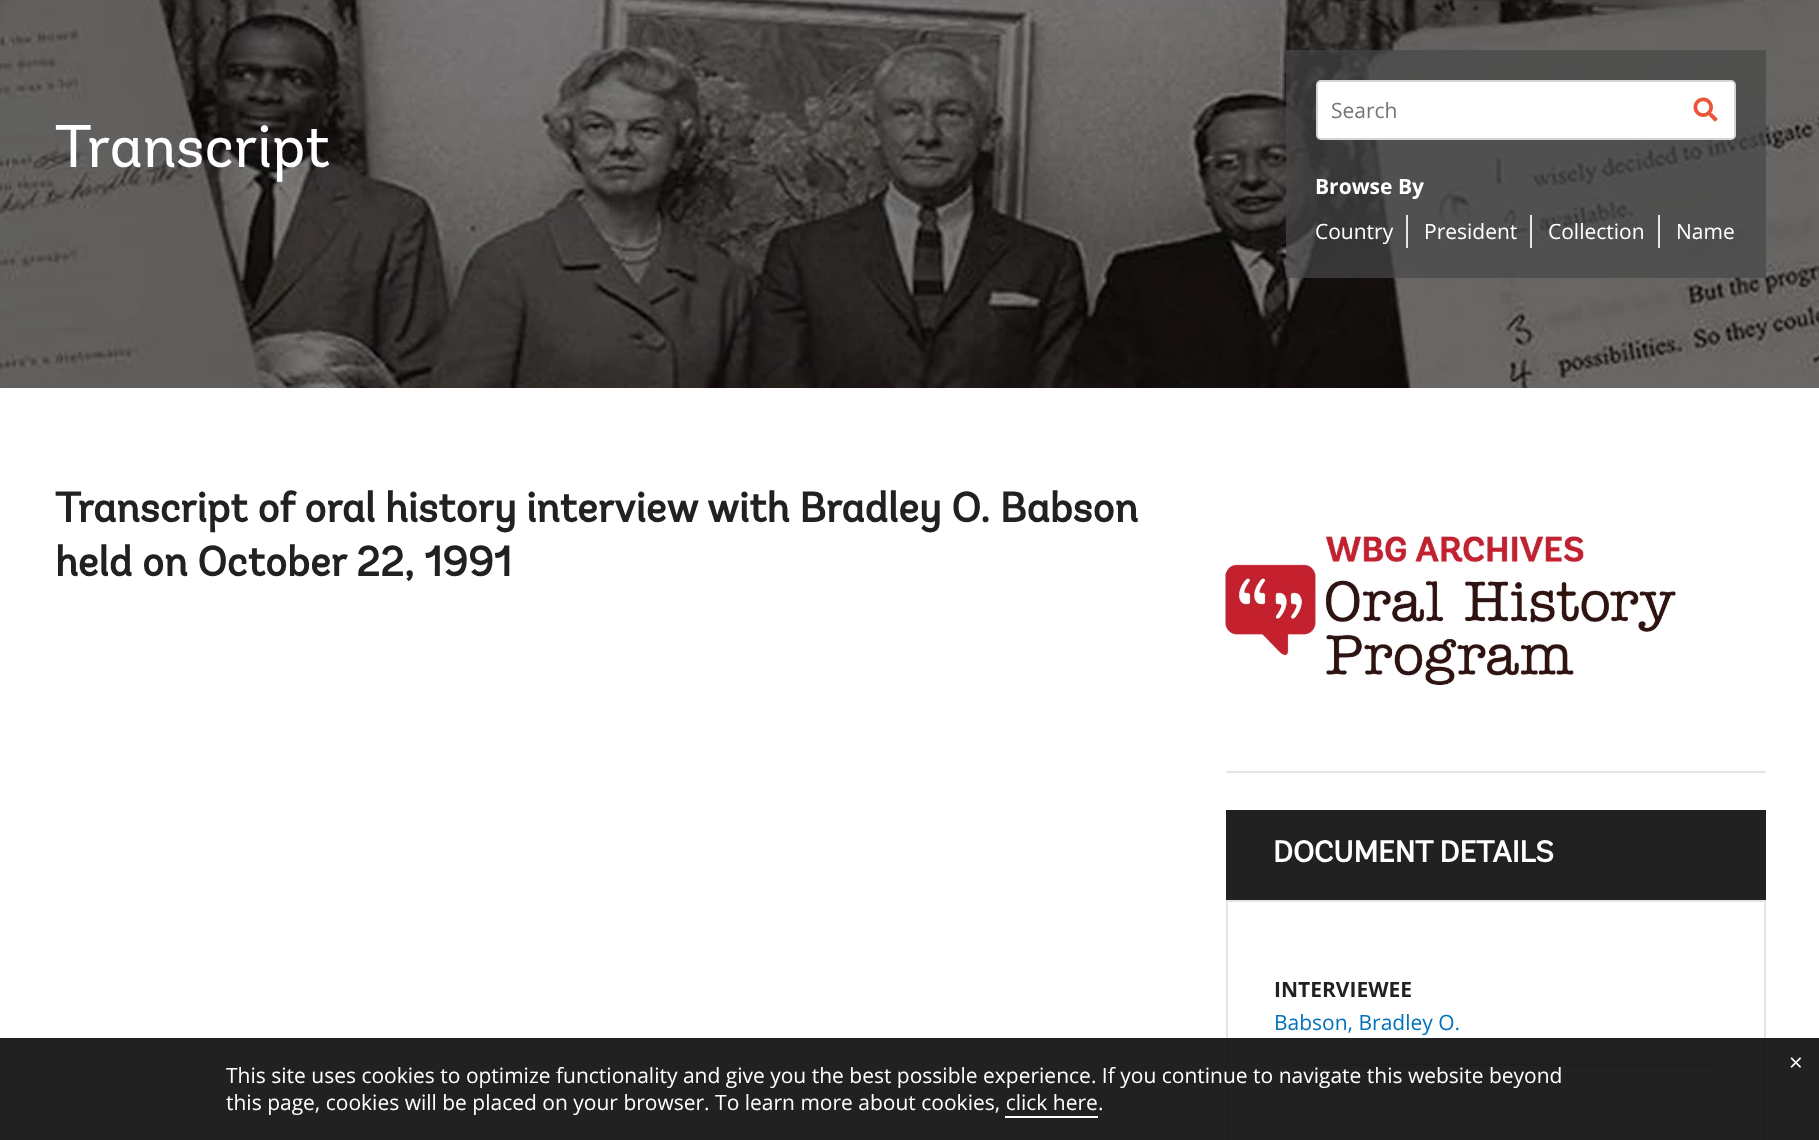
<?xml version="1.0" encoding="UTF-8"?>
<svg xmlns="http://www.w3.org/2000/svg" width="1819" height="1140">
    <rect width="100%" height="100%" fill="#FFFFFF"/>
    <image x="0" y="0" width="1819" height="388" href="img_01.png"/>
    <text x="55" y="167" font-family="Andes" font-size="60" fill="#FFFFFF">Transcript</text>
    <rect x="1286" y="50" width="480" height="228" fill="#474747" fill-opacity="0.7"/>
    <rect x="1317" y="81" width="418" height="58" rx="4" fill="#FFFFFF" stroke="#D4D4D4" stroke-width="2"/>
    <text x="1331" y="118" font-family="Open Sans" font-size="21" fill="#757575">Search</text>
    <image x="1693" y="97" width="25" height="25" href="img_02.png"/>
    <text x="1315" y="194" font-family="Open Sans" font-size="21" font-weight="700" fill="#FFFFFF">Browse By</text>
    <rect x="1406" y="215" width="2" height="33" fill="#E6E6E6"/>
    <text x="1315" y="239" font-family="Open Sans" font-size="21" fill="#FFFFFF">Country</text>
    <rect x="1530" y="215" width="2" height="33" fill="#E6E6E6"/>
    <text x="1424" y="239" font-family="Open Sans" font-size="21" fill="#FFFFFF">President</text>
    <rect x="1658" y="215" width="2" height="33" fill="#E6E6E6"/>
    <text x="1548" y="239" font-family="Open Sans" font-size="21" fill="#FFFFFF">Collection</text>
    <text x="1676" y="239" font-family="Open Sans" font-size="21" fill="#FFFFFF">Name</text>
    <text font-family="Andes" font-size="42" font-weight="700" fill="#212121">
        <tspan x="55" y="522">Transcript of oral history interview with Bradley O. Babson</tspan>
        <tspan x="55" y="576">held on October 22, 1991</tspan>
    </text>
    <image x="1225" y="535" width="451" height="150" href="img_03.png"/>
    <rect x="1226" y="771" width="540" height="2" fill="#E5E5E5"/>
    <rect x="1226" y="810" width="540" height="90" fill="#212121"/>
    <text x="1273" y="862" font-family="Andes" font-size="30" font-weight="700" fill="#FFFFFF">DOCUMENT DETAILS</text>
    <rect x="1227" y="901" width="538" height="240" fill="none" stroke="#E5E5E5" stroke-width="2"/>
    <rect x="1275" y="1064" width="441" height="2" fill="#E5E5E5"/>
    <text x="1274" y="997" font-family="Open Sans" font-size="21" font-weight="700" fill="#212121">INTERVIEWEE</text>
    <text x="1274" y="1030" font-family="Open Sans" font-size="21" fill="#0071BC">Babson, Bradley O.</text>
    <rect x="0" y="1038" width="1819" height="102" fill="#000000" fill-opacity="0.87"/>
    <text x="1789" y="1071" font-family="Open Sans" font-size="24" fill="#FFFFFF">×</text>
    <text font-family="Open Sans" font-size="21" fill="#FFFFFF">
        <tspan x="226" y="1083">This site uses cookies to optimize functionality and give you the best possible experience. If you continue to navigate this website beyond</tspan>
        <tspan x="226" y="1110">this page, cookies will be placed on your browser. To learn more about cookies, click here.</tspan>
    </text>
    <rect x="1005" y="1116" width="93" height="2" fill="#FFFFFF"/>
</svg>
